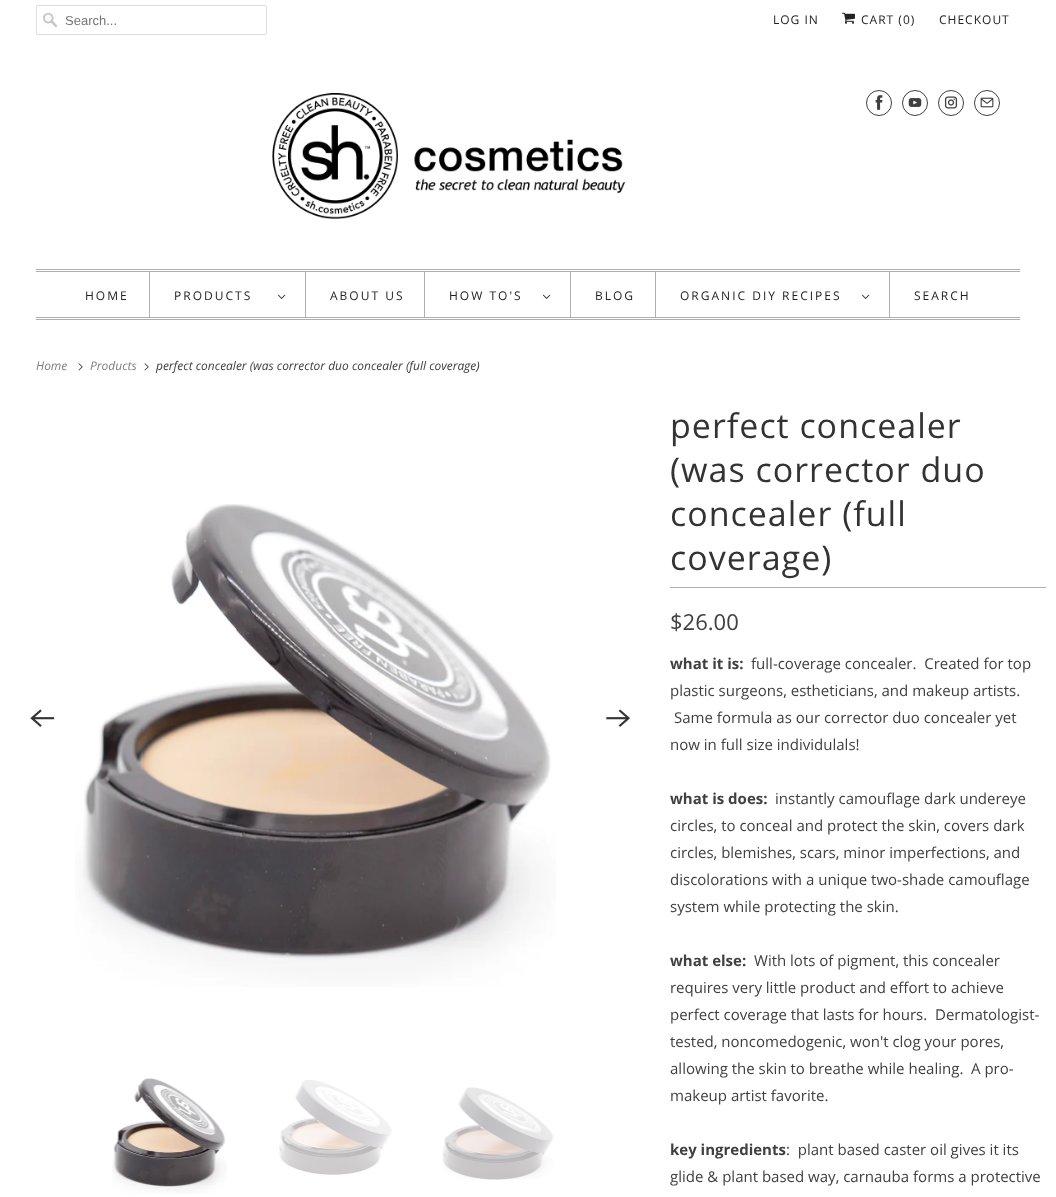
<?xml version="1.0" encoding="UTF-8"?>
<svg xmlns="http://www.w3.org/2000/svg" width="1056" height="1197">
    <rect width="100%" height="100%" fill="#FFFFFF"/>
    <image x="43" y="13" width="14" height="14" href="img_01.png"/>
    <rect x="36.5" y="5.5" width="230" height="29" rx="1.5" fill="none" stroke="#DFDFDF"/>
    <text x="65" y="25" font-family="Liberation Sans" font-size="13" fill="#757575">Search...</text>
    <text x="773" y="24" font-family="Open Sans" font-size="12" letter-spacing="1" fill="#222222">LOG IN</text>
    <image x="842" y="12" width="13" height="12" href="img_02.png"/>
    <text x="861" y="24" font-family="Open Sans" font-size="12" letter-spacing="1" fill="#222222">CART (0)</text>
    <text x="939" y="24" font-family="Open Sans" font-size="12" letter-spacing="1" fill="#222222">CHECKOUT</text>
    <image x="272" y="93" width="354" height="126" href="img_03.png"/>
    <circle cx="879" cy="103" r="12.5" fill="none" stroke="#404040"/>
    <image x="875" y="95" width="8" height="15" href="img_04.png"/>
    <circle cx="915" cy="103" r="12.5" fill="none" stroke="#404040"/>
    <image x="908" y="98" width="14" height="9" href="img_05.png"/>
    <circle cx="951" cy="103" r="12.5" fill="none" stroke="#404040"/>
    <image x="944" y="96" width="14" height="13" href="img_06.png"/>
    <circle cx="987" cy="103" r="12.5" fill="none" stroke="#404040"/>
    <image x="980" y="97" width="14" height="11" href="img_07.png"/>
    <rect x="36" y="269" width="984" height="1" fill="#AEAEB0"/>
    <rect x="36" y="271" width="984" height="1" fill="#AEAEB0"/>
    <rect x="36" y="317" width="984" height="1" fill="#AEAEB0"/>
    <rect x="36" y="319" width="984" height="1" fill="#AEAEB0"/>
    <rect x="149" y="272" width="1" height="45" fill="#AEAEB0"/>
    <text x="85" y="300" font-family="Open Sans" font-size="12" letter-spacing="2" fill="#222222">HOME</text>
    <rect x="305" y="272" width="1" height="45" fill="#AEAEB0"/>
    <text x="174" y="300" font-family="Open Sans" font-size="12" letter-spacing="2" fill="#222222">PRODUCTS</text>
    <image x="278" y="294" width="8" height="5" href="img_08.png"/>
    <rect x="424" y="272" width="1" height="45" fill="#AEAEB0"/>
    <text x="330" y="300" font-family="Open Sans" font-size="12" letter-spacing="2" fill="#222222">ABOUT US</text>
    <rect x="570" y="272" width="1" height="45" fill="#AEAEB0"/>
    <text x="449" y="300" font-family="Open Sans" font-size="12" letter-spacing="2" fill="#222222">HOW TO'S</text>
    <image x="543" y="294" width="8" height="5" href="img_08.png"/>
    <rect x="655" y="272" width="1" height="45" fill="#AEAEB0"/>
    <text x="595" y="300" font-family="Open Sans" font-size="12" letter-spacing="2" fill="#222222">BLOG</text>
    <rect x="889" y="272" width="1" height="45" fill="#AEAEB0"/>
    <text x="680" y="300" font-family="Open Sans" font-size="12" letter-spacing="2" fill="#222222">ORGANIC DIY RECIPES</text>
    <image x="862" y="294" width="8" height="5" href="img_08.png"/>
    <text x="914" y="300" font-family="Open Sans" font-size="12" letter-spacing="2" fill="#222222">SEARCH</text>
    <text x="36" y="370" font-family="Open Sans" font-size="12" font-style="italic" fill="#808080">Home</text>
    <image x="78" y="363" width="5" height="8" href="img_09.png"/>
    <text x="90" y="370" font-family="Open Sans" font-size="12" font-style="italic" fill="#808080">Products</text>
    <image x="144" y="363" width="5" height="8" href="img_09.png"/>
    <text x="156" y="370" font-family="Open Sans" font-size="12" font-style="italic" fill="#404040">perfect concealer (was corrector duo concealer (full coverage)</text>
    <image x="30" y="709" width="25" height="18" href="img_10.png"/>
    <image x="75" y="504" width="481" height="483" href="img_11.png"/>
    <image x="606" y="709" width="24" height="18" href="img_12.png"/>
    <image x="112" y="1078" width="115" height="116" href="img_13.png"/>
    <image x="279" y="1080" width="113" height="95" href="img_14.png"/>
    <image x="442" y="1087" width="112" height="93" href="img_15.png"/>
    <rect x="670" y="587" width="376" height="1" fill="#AEAEB0"/>
    <text font-family="Open Sans" font-size="34" letter-spacing="1" fill="#333333">
        <tspan x="670" y="438">perfect concealer</tspan>
        <tspan x="670" y="482">(was corrector duo</tspan>
        <tspan x="670" y="526">concealer (full</tspan>
        <tspan x="670" y="570">coverage)</tspan>
    </text>
    <text x="670" y="630" font-family="Open Sans" font-size="22" fill="#404040">$26.00</text>
    <text x="670" y="669" font-family="Open Sans" font-size="15" font-weight="700" fill="#404040">what it is:</text>
    <text x="751" y="669" font-family="Open Sans" font-size="15" fill="#404040" xml:space="preserve">full-coverage concealer.  Created for top</text>
    <text x="670" y="696" font-family="Open Sans" font-size="15" fill="#404040">plastic surgeons, estheticians, and makeup artists.</text>
    <text x="674" y="723" font-family="Open Sans" font-size="15" fill="#404040">Same formula as our corrector duo concealer yet</text>
    <text x="670" y="750" font-family="Open Sans" font-size="15" fill="#404040">now in full size individulals!</text>
    <text x="670" y="804" font-family="Open Sans" font-size="15" font-weight="700" fill="#404040">what is does:</text>
    <text x="775" y="804" font-family="Open Sans" font-size="15" fill="#404040">instantly camouflage dark undereye</text>
    <text font-family="Open Sans" font-size="15" fill="#404040">
        <tspan x="670" y="831">circles, to conceal and protect the skin, covers dark</tspan>
        <tspan x="670" y="858">circles, blemishes, scars, minor imperfections, and</tspan>
        <tspan x="670" y="885">discolorations with a unique two-shade camouflage</tspan>
        <tspan x="670" y="912">system while protecting the skin.</tspan>
    </text>
    <text x="670" y="966" font-family="Open Sans" font-size="15" font-weight="700" fill="#404040">what else:</text>
    <text x="754" y="966" font-family="Open Sans" font-size="15" fill="#404040">With lots of pigment, this concealer</text>
    <text font-family="Open Sans" font-size="15" fill="#404040">
        <tspan x="670" y="993">requires very little product and effort to achieve</tspan>
        <tspan x="670" y="1020">perfect coverage that lasts for hours.</tspan>
    </text>
    <text x="935" y="1020" font-family="Open Sans" font-size="15" fill="#404040">Dermatologist-</text>
    <text font-family="Open Sans" font-size="15" fill="#404040">
        <tspan x="670" y="1047">tested, noncomedogenic, won't clog your pores,</tspan>
        <tspan x="670" y="1074">allowing the skin to breathe while healing.</tspan>
    </text>
    <text x="971" y="1074" font-family="Open Sans" font-size="15" fill="#404040">A pro-</text>
    <text x="670" y="1101" font-family="Open Sans" font-size="15" fill="#404040">makeup artist favorite.</text>
    <text x="670" y="1155" font-family="Open Sans" font-size="15" font-weight="700" fill="#404040">key ingredients</text>
    <text x="786" y="1155" font-family="Open Sans" font-size="15" fill="#404040" xml:space="preserve">:  plant based caster oil gives it its</text>
    <text x="670" y="1182" font-family="Open Sans" font-size="15" fill="#404040">glide &amp; plant based way, carnauba forms a protective</text>
</svg>
